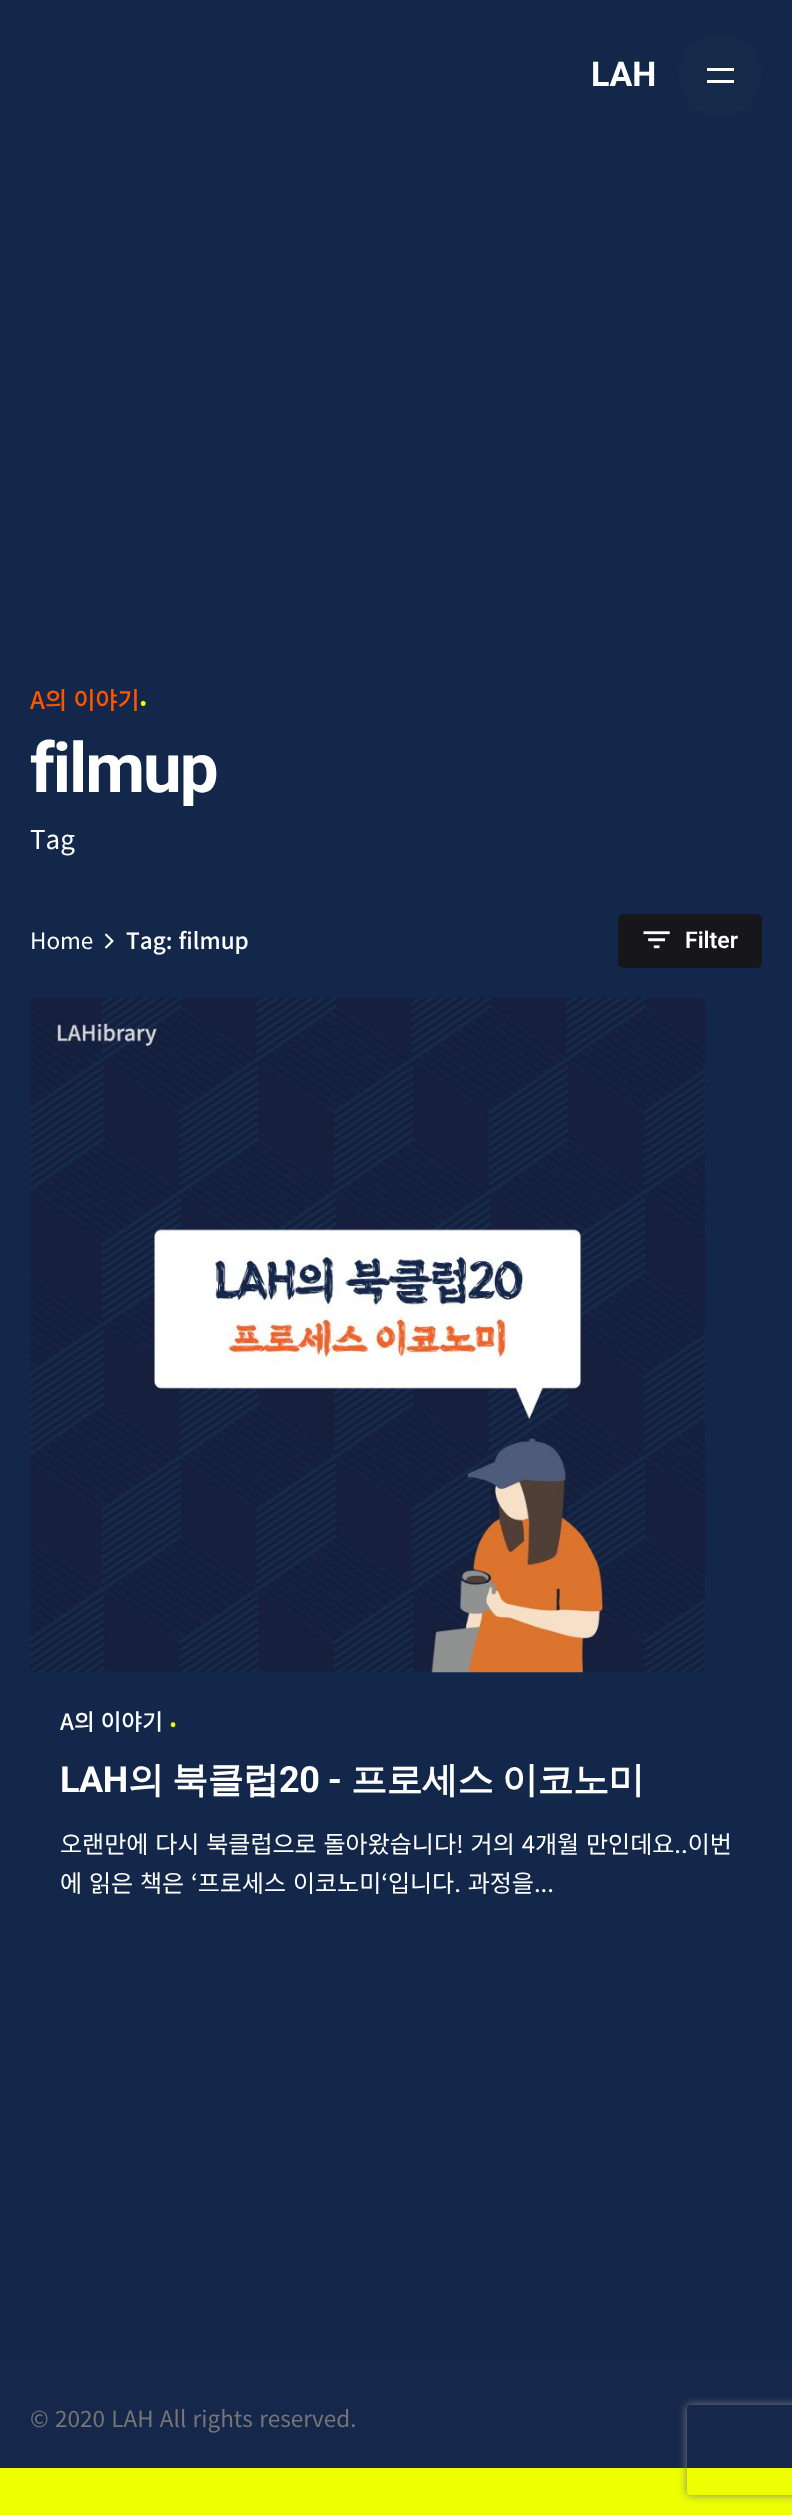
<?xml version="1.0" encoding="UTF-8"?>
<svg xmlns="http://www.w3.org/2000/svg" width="792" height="2515">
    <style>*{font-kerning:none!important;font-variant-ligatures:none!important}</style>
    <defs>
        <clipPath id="clip1"><path d="M 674 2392 H 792 V 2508 H 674 Z M 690 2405 H 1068 C 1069.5 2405 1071 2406.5 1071 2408 V 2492 C 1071 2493.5 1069.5 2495 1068 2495 H 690 C 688.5 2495 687 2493.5 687 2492 V 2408 C 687 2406.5 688.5 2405 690 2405 Z" clip-rule="evenodd"/></clipPath>
        <filter id="blur1" x="-50%" y="-200%" width="200%" height="500%"><feGaussianBlur stdDeviation="4"/></filter>
    </defs>
    <rect width="100%" height="100%" fill="#EEFF01"/>
    <rect x="0" y="0" width="792" height="2355" fill="#122749"/>
    <text x="591" y="86" font-family="Roboto" font-size="34" font-weight="700" fill="#FFFFFF">LAH</text>
    <circle cx="720" cy="75" r="42" fill="#162A4B"/>
    <rect x="707" y="68" width="27" height="3" fill="#FFFFFF"/>
    <rect x="707" y="80" width="27" height="3" fill="#FFFFFF"/>
    <text x="30" y="709" word-spacing="1" font-family="Noto Sans KR" font-size="24" font-weight="500" fill="#FF5500">A의 이야기</text>
    <text x="140" y="709" font-family="Noto Sans KR" font-size="19" fill="#EEFF01">•</text>
    <text x="30" y="792" font-family="Roboto" font-size="69" font-weight="700" letter-spacing="-2" fill="#FFFFFF">filmup</text>
    <text x="30" y="849" font-family="Noto Sans KR" font-size="26" fill="#FFFFFF">Tag</text>
    <text x="30" y="949" font-family="Noto Sans KR" font-size="22.5" fill="#FFFFFF">Home</text>
    <image x="105" y="933" width="9" height="16" href="img_01.png"/>
    <text x="126" y="949" word-spacing="1" font-family="Noto Sans KR" font-size="22.5" font-weight="500" fill="#FFFFFF">Tag: filmup</text>
    <rect x="619" y="915" width="142" height="52" rx="5" fill="#17161A" stroke="#17161A" stroke-width="2"/>
    <image x="643" y="931" width="27" height="18" href="img_02.png"/>
    <text x="685" y="948" font-family="Roboto" font-size="23" font-weight="600" fill="#FFFFFF">Filter</text>
    <image x="30" y="998" width="675" height="675" href="img_03.png"/>
    <text x="60" y="1730" word-spacing="1" font-family="Noto Sans KR" font-size="22.5" font-weight="500" fill="#FFFFFF">A의 이야기</text>
    <text x="170" y="1730" font-family="Noto Sans KR" font-size="18" fill="#EEFF01">•</text>
    <text x="60" y="1792" font-family="Roboto" font-size="36" font-weight="700" letter-spacing="-0.5" fill="#FFFFFF">LAH</text>
    <text x="128" y="1792" font-family="WenQuanYi Zen Hei" font-size="36" font-weight="700" letter-spacing="-0.5" fill="#FFFFFF">의</text>
    <text x="172" y="1792" font-family="WenQuanYi Zen Hei" font-size="36" font-weight="700" letter-spacing="-0.5" fill="#FFFFFF">북클럽</text>
    <text x="279" y="1792" font-family="Roboto" font-size="36" font-weight="700" letter-spacing="-0.5" fill="#FFFFFF">20 -</text>
    <text x="351" y="1792" font-family="WenQuanYi Zen Hei" font-size="36" font-weight="700" letter-spacing="-0.5" fill="#FFFFFF">프로세스</text>
    <text x="502" y="1792" font-family="WenQuanYi Zen Hei" font-size="36" font-weight="700" letter-spacing="-0.5" fill="#FFFFFF">이코노미</text>
    <text font-family="Noto Sans KR" font-size="24" fill="#FFFFFF">
        <tspan x="60" y="1853" word-spacing="1.5">오랜만에 다시 북클럽으로 돌아왔습니다! 거의 4개월 만인데요..이번</tspan>
        <tspan x="60" y="1892" word-spacing="1.5">에 읽은 책은 ‘프로세스 이코노미‘입니다. 과정을...</tspan>
    </text>
    <rect x="0" y="2355" width="792" height="113" fill="#15284B"/>
    <text x="30" y="2427" word-spacing="1.25" font-family="Noto Sans KR" font-size="22.5" fill="#757575">© 2020 LAH All rights reserved.</text>
    <g clip-path="url(#clip1)">
        <rect x="687" y="2405" width="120" height="90" rx="3" fill="#808080" filter="url(#blur1)"/>
    </g>
</svg>
